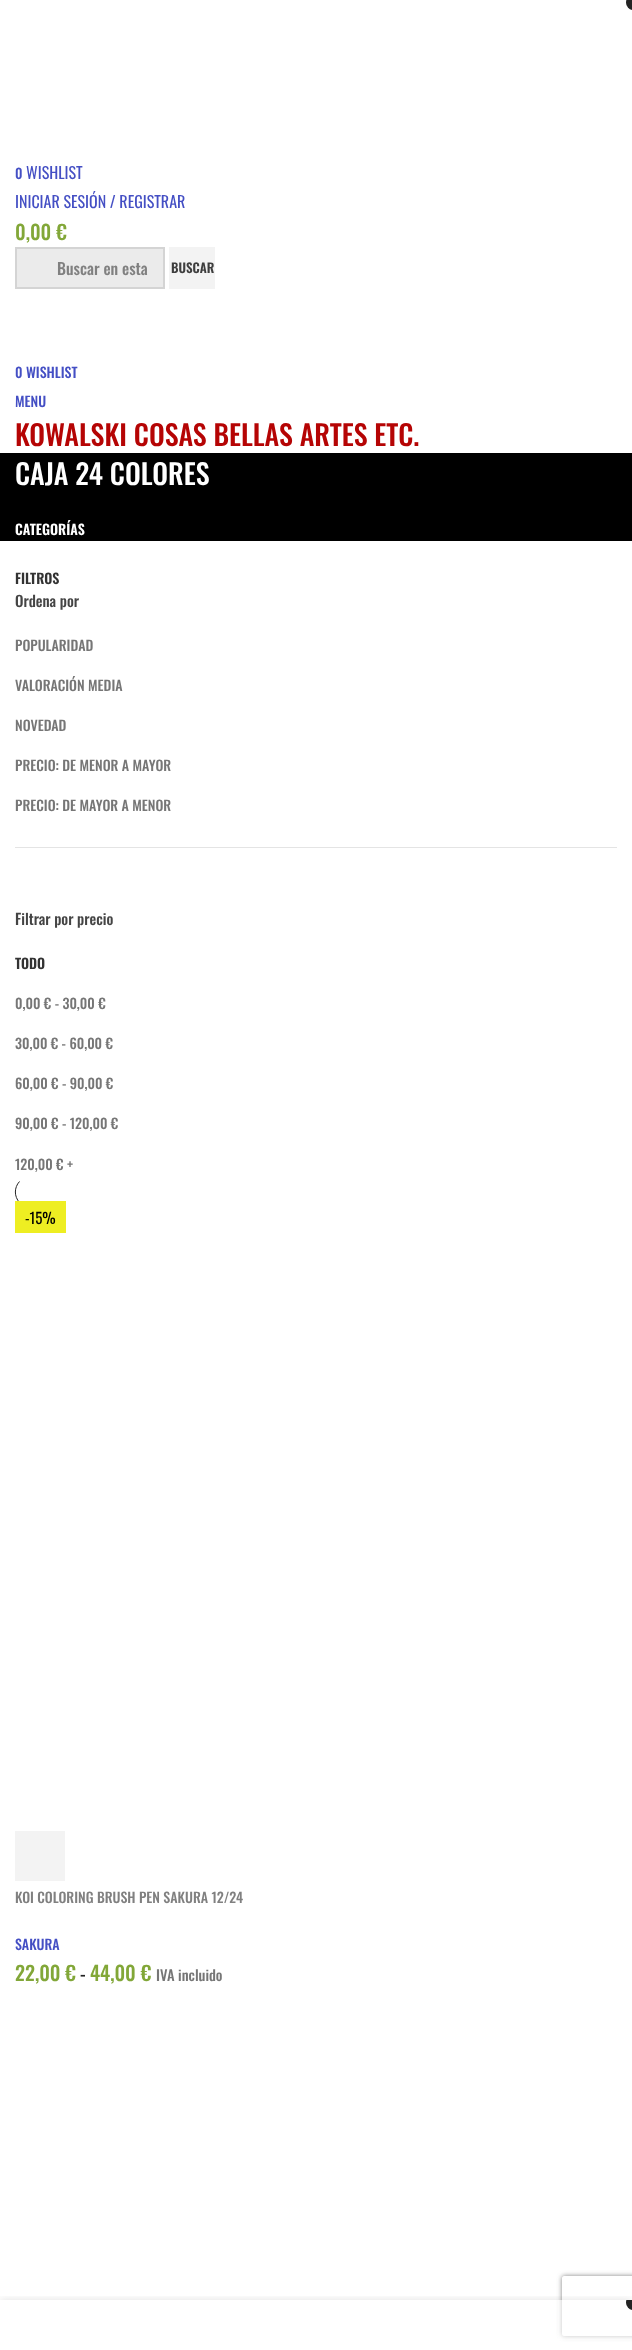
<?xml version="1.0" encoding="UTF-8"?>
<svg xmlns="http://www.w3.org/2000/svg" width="632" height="2350">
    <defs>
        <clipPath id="clip1"><path d="M 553 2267 H 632 V 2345 H 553 Z M 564 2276 H 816 C 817 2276 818 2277 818 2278 V 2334 C 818 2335 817 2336 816 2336 H 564 C 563 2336 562 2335 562 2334 V 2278 C 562 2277 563 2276 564 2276 Z" clip-rule="evenodd"/></clipPath>
        <filter id="blur1" x="-50%" y="-200%" width="200%" height="500%"><feGaussianBlur stdDeviation="2.5"/></filter>
        <clipPath id="clip2"><rect x="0" y="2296" width="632" height="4"/></clipPath>
        <filter id="blur2" x="-50%" y="-200%" width="200%" height="500%"><feGaussianBlur stdDeviation="4.5"/></filter>
        <clipPath id="clip3"><rect x="0" y="2300" width="632" height="50"/></clipPath>
    </defs>
    <rect width="100%" height="100%" fill="#FFFFFF"/>
    <text x="15" y="179" font-family="Oswald" font-size="14" font-weight="500" fill="#444FC4">0</text>
    <text x="26" y="179" font-family="Oswald" font-size="16" fill="#444FC4">WISHLIST</text>
    <text x="15" y="208" font-family="Oswald" font-size="16" fill="#444FC4">INICIAR SESIÓN / REGISTRAR</text>
    <rect x="626" y="-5" width="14" height="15" rx="7.5" fill="#232323"/>
    <text x="15" y="240" font-family="Oswald" font-size="20" font-weight="500" fill="#82A738">0,00 €</text>
    <rect x="16" y="248" width="148" height="40" fill="#EBEBEB" stroke="#D4D4D4" stroke-width="2"/>
    <text x="57" y="275" font-family="Oswald" font-size="16" font-weight="500" fill="#808080">Buscar en esta</text>
    <rect x="169" y="247" width="46" height="42" fill="#F3F3F3"/>
    <text x="171" y="273" font-family="Oswald" font-size="13" font-weight="600" fill="#3E3E3E">BUSCAR</text>
    <text x="15" y="378" font-family="Oswald" font-size="14" font-weight="500" fill="#444FC4">0 WISHLIST</text>
    <text x="15" y="407" font-family="Oswald" font-size="14" font-weight="500" fill="#444FC4">MENU</text>
    <text x="15" y="446" font-family="Oswald" font-size="28" font-weight="500" fill="#B50404">KOWALSKI COSAS BELLAS ARTES ETC.</text>
    <rect x="0" y="453" width="632" height="88" fill="#000000"/>
    <text x="15" y="485" font-family="Oswald" font-size="28" font-weight="500" fill="#FFFFFF">CAJA 24 COLORES</text>
    <text x="15" y="535" font-family="Oswald" font-size="14" font-weight="600" fill="#FFFFFF">CATEGORÍAS</text>
    <text x="15" y="584" font-family="Oswald" font-size="14" font-weight="600" fill="#333333">FILTROS</text>
    <rect x="15" y="847" width="602" height="1" fill="#E4E4E4"/>
    <text x="15" y="607" font-family="Oswald" font-size="15" font-weight="500" fill="#444444">Ordena por</text>
    <text x="15" y="651" font-family="Oswald" font-size="14" font-weight="500" fill="#767676">POPULARIDAD</text>
    <text x="15" y="691" font-family="Oswald" font-size="14" font-weight="500" fill="#767676">VALORACIÓN MEDIA</text>
    <text x="15" y="731" font-family="Oswald" font-size="14" font-weight="500" fill="#767676">NOVEDAD</text>
    <text x="15" y="771" font-family="Oswald" font-size="14" font-weight="500" fill="#767676">PRECIO: DE MENOR A MAYOR</text>
    <text x="15" y="811" font-family="Oswald" font-size="14" font-weight="500" fill="#767676">PRECIO: DE MAYOR A MENOR</text>
    <text x="15" y="925" font-family="Oswald" font-size="15" font-weight="500" fill="#444444">Filtrar por precio</text>
    <text x="15" y="969" font-family="Oswald" font-size="14" font-weight="600" fill="#333333">TODO</text>
    <text x="15" y="1009" font-family="Oswald" font-size="14" font-weight="500" fill="#767676">0,00 € - 30,00 €</text>
    <text x="15" y="1049" font-family="Oswald" font-size="14" font-weight="500" fill="#767676">30,00 € - 60,00 €</text>
    <text x="15" y="1089" font-family="Oswald" font-size="14" font-weight="500" fill="#767676">60,00 € - 90,00 €</text>
    <text x="15" y="1129" font-family="Oswald" font-size="14" font-weight="500" fill="#767676">90,00 € - 120,00 €</text>
    <text x="15" y="1170" font-family="Oswald" font-size="14" font-weight="500" fill="#767676">120,00 € +</text>
    <path d="M 19.5 1202.5 C 14 1196.5 14 1187.5 19.5 1181.5" fill="none" stroke="#242424"/>
    <rect x="15" y="1201" width="51" height="32" fill="#EEEE22"/>
    <text x="25" y="1224" font-family="Oswald" font-size="15" fill="#000000">-15%</text>
    <rect x="15" y="1831" width="50" height="50" fill="#F3F3F3"/>
    <text x="15" y="1903" font-family="Oswald" font-size="14" font-weight="500" fill="#808080">KOI COLORING BRUSH PEN SAKURA 12/24</text>
    <text x="15" y="1950" font-family="Oswald" font-size="14" font-weight="500" fill="#444FC4">SAKURA</text>
    <text x="15" y="1981" font-family="Oswald" font-size="20" font-weight="500" fill="#82A738">22,00 €</text>
    <text x="80" y="1981" font-family="Oswald" font-size="18" font-weight="500" fill="#232323">-</text>
    <text x="90" y="1981" font-family="Oswald" font-size="20" font-weight="500" fill="#82A738">44,00 €</text>
    <text x="156" y="1981" font-family="Oswald" font-size="14.5" font-weight="500" fill="#767676">IVA incluido</text>
    <g clip-path="url(#clip1)">
        <rect x="562" y="2276" width="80" height="60" rx="2" fill="#808080" filter="url(#blur1)"/>
    </g>
    <g clip-path="url(#clip2)">
        <rect x="0" y="2300" width="632" height="50" fill="#000000" fill-opacity="0.12" filter="url(#blur2)"/>
    </g>
    <rect x="558" y="2300" width="74" height="40" fill="#FFFFFF" fill-opacity="0.56"/>
    <g clip-path="url(#clip3)">
        <rect x="626" y="2295" width="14" height="15" rx="7.5" fill="#232323"/>
    </g>
</svg>
